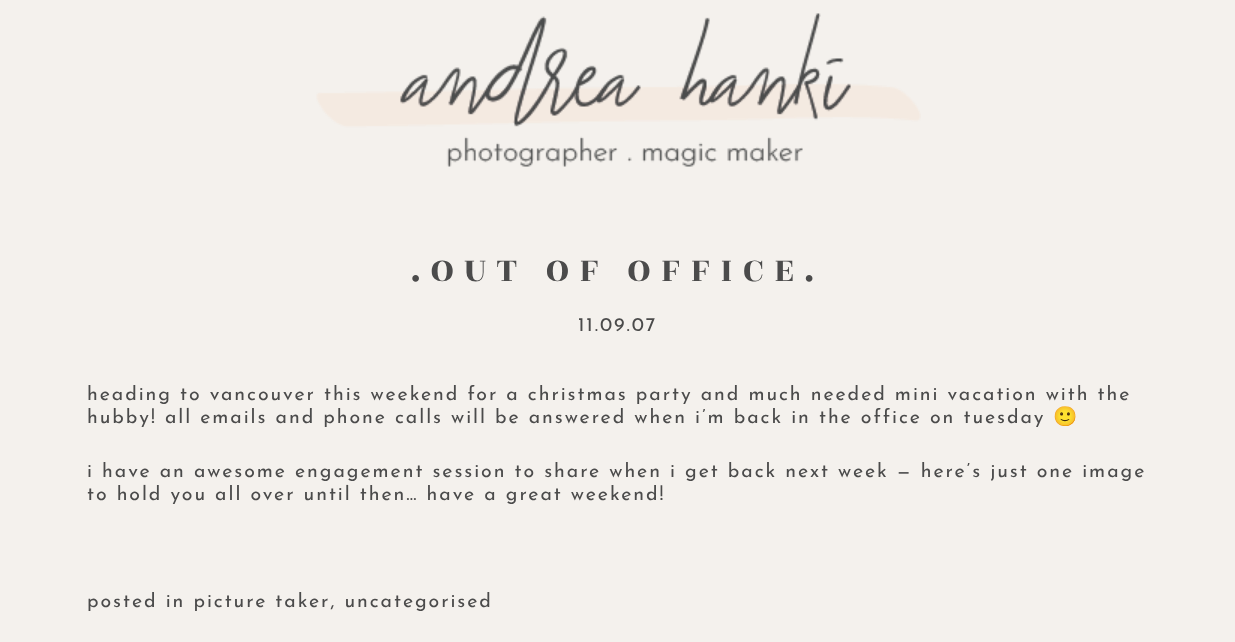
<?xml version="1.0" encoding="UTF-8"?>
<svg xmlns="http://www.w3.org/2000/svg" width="1235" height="642">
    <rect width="100%" height="100%" fill="#F4F1ED"/>
    <image x="316" y="13" width="605" height="154" href="img_01.png"/>
    <text x="411" y="281" font-family="Rozha One" font-size="36" letter-spacing="10.75" fill="#4B4B4B">.OUT OF OFFICE.</text>
    <text x="578" y="331" font-family="Josefin Sans" font-size="19.5" font-weight="100" letter-spacing="1.95" fill="#4B4B4B">11.09.07</text>
    <text font-family="Josefin Sans" font-size="19.5" font-weight="100" letter-spacing="1.95" fill="#4B4B4B">
        <tspan x="87" y="400">heading to vancouver this weekend for a christmas party and much needed mini vacation with the</tspan>
        <tspan x="87" y="423">hubby! all emails and phone calls will be answered when i’m back in the office on tuesday</tspan>
    </text>
    <text x="1053" y="423" font-family="Noto Color Emoji" font-size="19.5" letter-spacing="1.95" fill="#4B4B4B">🙂</text>
    <text font-family="Josefin Sans" font-size="19.5" font-weight="100" letter-spacing="1.95" fill="#4B4B4B">
        <tspan x="87" y="477">i have an awesome engagement session to share when i get back next week — here’s just one image</tspan>
        <tspan x="87" y="500">to hold you all over until then… have a great weekend!</tspan>
    </text>
    <text x="87" y="607" font-family="Josefin Sans" font-size="19.5" font-weight="100" letter-spacing="1.95" fill="#4B4B4B">posted in picture taker, uncategorised</text>
</svg>
